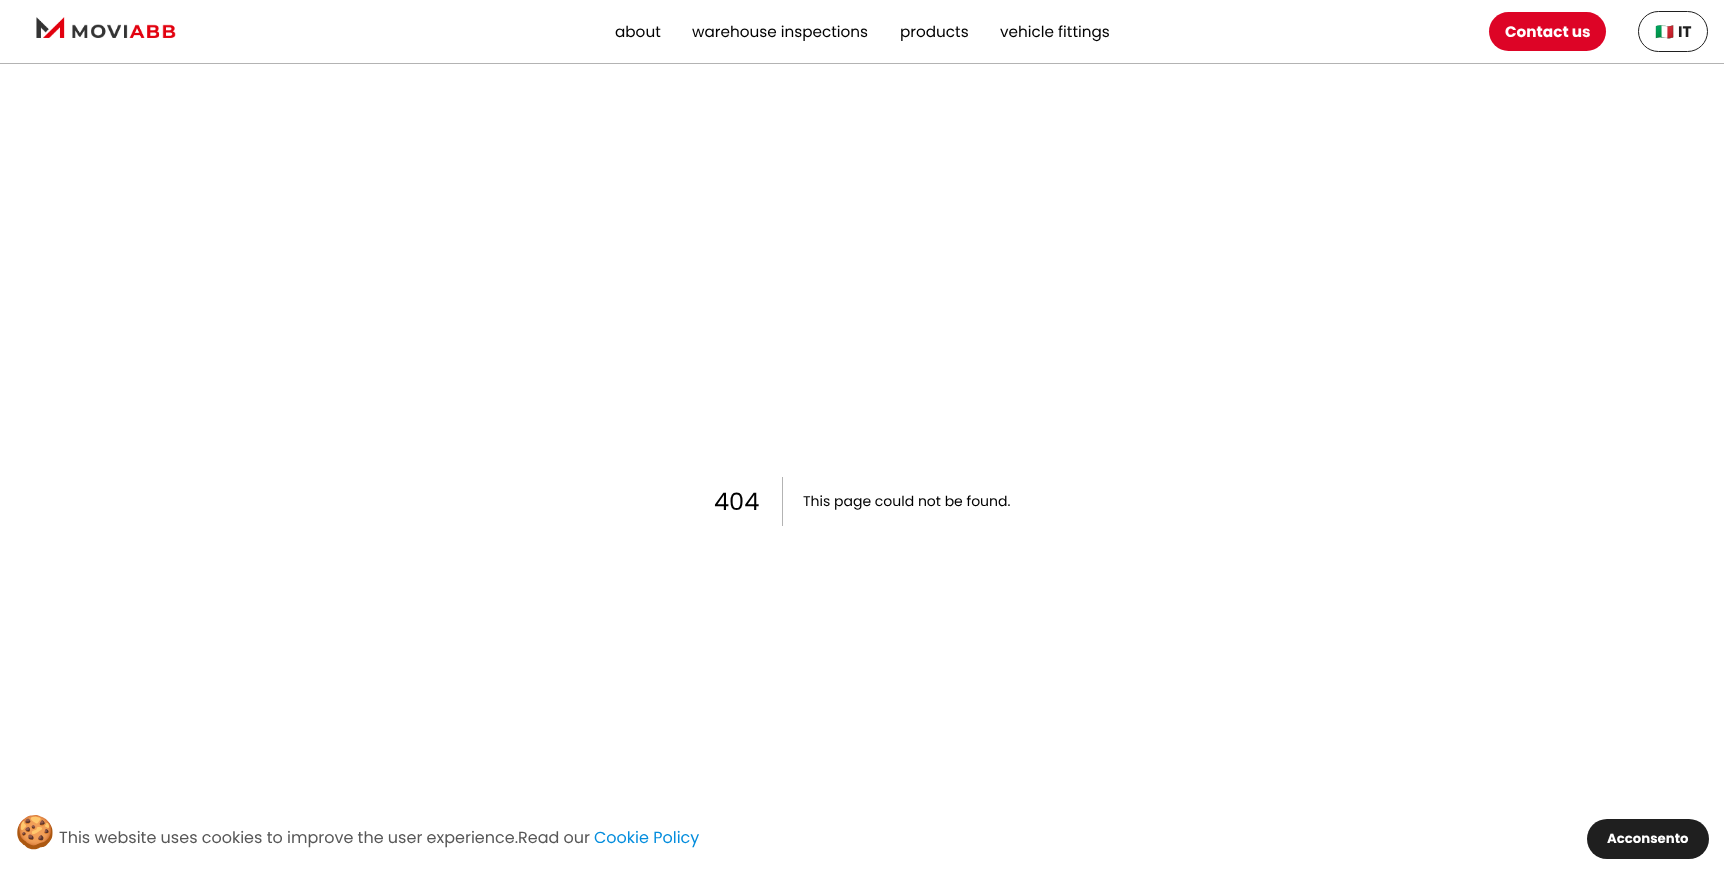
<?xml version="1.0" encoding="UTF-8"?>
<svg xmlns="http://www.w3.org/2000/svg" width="1724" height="874">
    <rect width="100%" height="100%" fill="#FFFFFF"/>
    <rect x="0" y="63" width="1724" height="1" fill="#B3B3B3"/>
    <image x="36" y="17" width="140" height="21" href="img_01.png"/>
    <text x="615" y="37" font-family="Poppins" font-size="15.25" fill="#000000">about</text>
    <text x="692" y="37" font-family="Poppins" font-size="15.25" fill="#000000">warehouse inspections</text>
    <text x="900" y="37" font-family="Poppins" font-size="15.25" fill="#000000">products</text>
    <text x="1000" y="37" font-family="Poppins" font-size="15.25" fill="#000000">vehicle fittings</text>
    <rect x="1489" y="12" width="117" height="39" rx="19.5" fill="#DD0426"/>
    <text x="1505" y="37" font-family="Poppins" font-size="15.25" font-weight="700" fill="#FFFFFF">Contact us</text>
    <rect x="1638.5" y="11.5" width="69" height="40" rx="20" fill="none" stroke="#1F1F1F"/>
    <text x="1655" y="37" font-family="Noto Color Emoji" font-size="15.25" font-weight="700" fill="#1F1F1F">🇮🇹</text>
    <text x="1678" y="37" font-family="Poppins" font-size="15.25" font-weight="700" fill="#1F1F1F">IT</text>
    <rect x="782" y="477" width="1" height="49" fill="#B3B3B3"/>
    <text x="714" y="510" font-family="Poppins" font-size="24" fill="#000000">404</text>
    <text x="803" y="506" font-family="Poppins" font-size="14" fill="#000000">This page could not be found.</text>
    <text x="15" y="843" font-family="Noto Color Emoji" font-size="32" fill="#575757">🍪</text>
    <text x="59" y="843" font-family="Poppins" font-size="16" fill="#575757">This website uses cookies to improve the user experience.Read our</text>
    <text x="594" y="843" font-family="Poppins" font-size="16" fill="#048DDD">Cookie Policy</text>
    <rect x="1587" y="819" width="122" height="40" rx="20" fill="#1F1F1F"/>
    <text x="1607" y="843" font-family="Poppins" font-size="13.25" font-weight="700" fill="#FFFFFF">Acconsento</text>
</svg>
